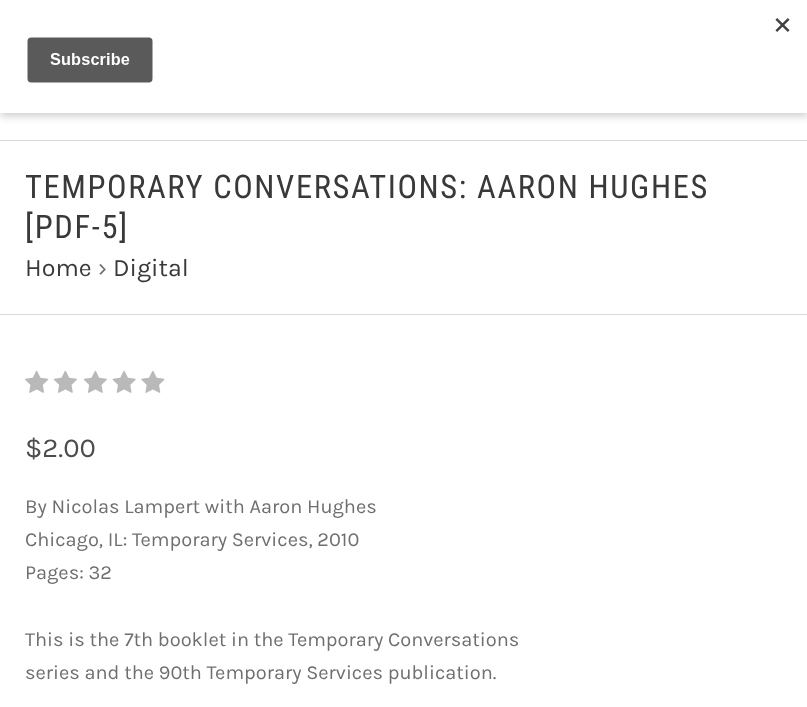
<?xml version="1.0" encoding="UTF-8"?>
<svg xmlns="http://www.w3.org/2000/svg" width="807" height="707">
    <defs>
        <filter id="blur1" x="-50%" y="-200%" width="200%" height="500%"><feGaussianBlur stdDeviation="4"/></filter>
    </defs>
    <rect width="100%" height="100%" fill="#FFFFFF"/>
    <rect x="0" y="4" width="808" height="112" fill="#000000" fill-opacity="0.2" filter="url(#blur1)"/>
    <rect x="0" y="0" width="807" height="113" fill="#FFFFFF"/>
    <image x="27" y="18" width="763" height="65" href="img_01.png"/>
    <rect x="0" y="140" width="807" height="1" fill="#DADADA"/>
    <rect x="0" y="314" width="807" height="1" fill="#DADADA"/>
    <text font-family="Roboto Condensed" font-size="32.5" letter-spacing="1.6" fill="#393939">
        <tspan x="25" y="198">TEMPORARY CONVERSATIONS: AARON HUGHES</tspan>
        <tspan x="25" y="238">[PDF-5]</tspan>
    </text>
    <text x="25" y="276" font-family="Karla" font-size="25" fill="#393939">Home</text>
    <text x="98" y="276" font-family="Karla" font-size="25" fill="#6F6F6F">›</text>
    <text x="113" y="276" font-family="Karla" font-size="25" fill="#393939">Digital</text>
    <image x="25" y="370" width="24" height="23" href="img_02.png"/>
    <image x="53" y="370" width="24" height="23" href="img_03.png"/>
    <image x="83" y="370" width="24" height="23" href="img_03.png"/>
    <image x="112" y="370" width="24" height="23" href="img_04.png"/>
    <image x="141" y="370" width="24" height="23" href="img_05.png"/>
    <text x="25" y="457" font-family="Karla" font-size="27.5" fill="#4D4D4D">$2.00</text>
    <text font-family="Karla" font-size="20" fill="#6F6F6F">
        <tspan x="25" y="513">By Nicolas Lampert with Aaron Hughes</tspan>
        <tspan x="25" y="546">Chicago, IL: Temporary Services, 2010</tspan>
        <tspan x="25" y="579">Pages: 32</tspan>
    </text>
    <text font-family="Karla" font-size="20" fill="#6F6F6F">
        <tspan x="25" y="646">This is the 7th booklet in the Temporary Conversations</tspan>
        <tspan x="25" y="679">series and the 90th Temporary Services publication.</tspan>
    </text>
</svg>
